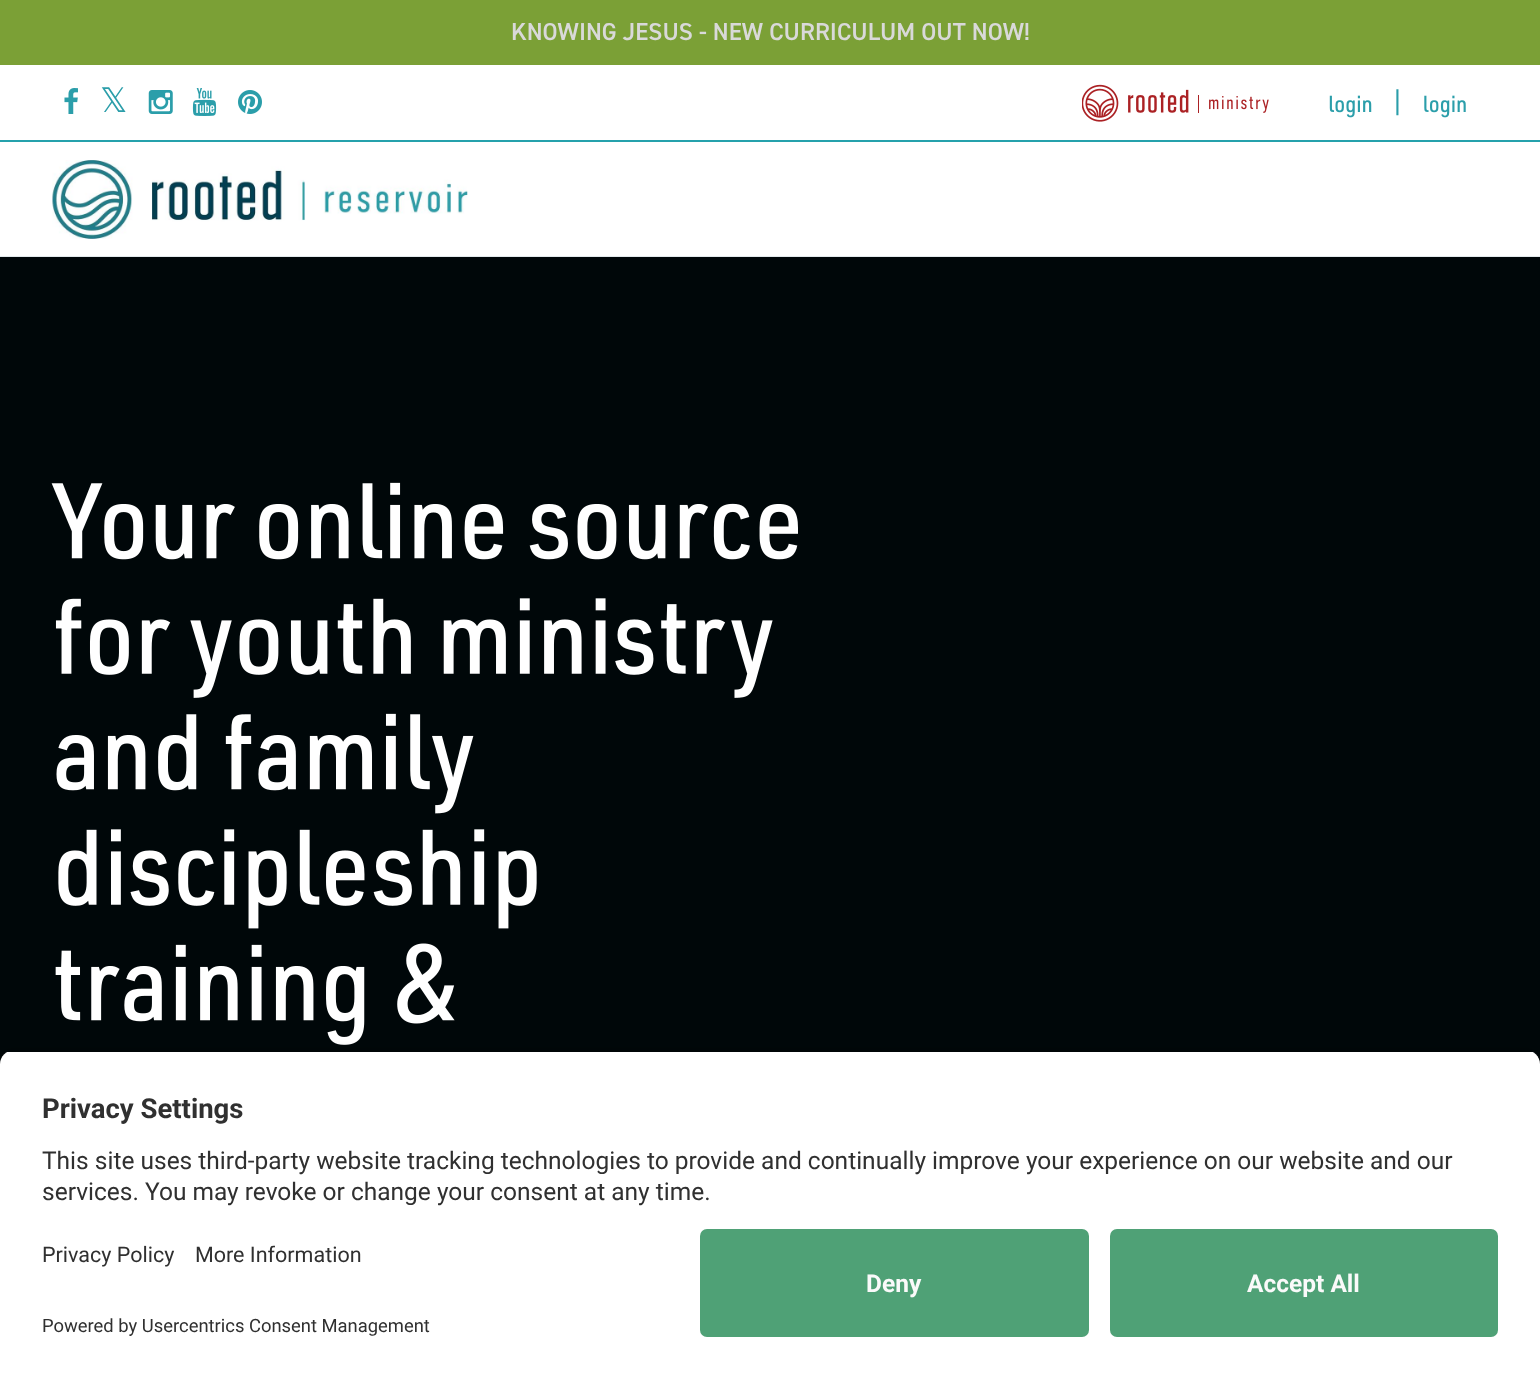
<?xml version="1.0" encoding="UTF-8"?>
<svg xmlns="http://www.w3.org/2000/svg" width="1540" height="1378">
    <defs>
        <filter id="blur1" x="-50%" y="-200%" width="200%" height="500%"><feGaussianBlur stdDeviation="6"/></filter>
        <clipPath id="clip1"><path d="M 14 1050 H 1526 C 1533.5 1050 1540 1056.5 1540 1064 V 1215 H 0 V 1064 C 0 1056.5 6.5 1050 14 1050 Z"/></clipPath>
    </defs>
    <rect width="100%" height="100%" fill="#FFFFFF"/>
    <rect x="0" y="256" width="1540" height="1" fill="#E3EAEC"/>
    <rect x="0" y="0" width="1540" height="65" fill="#7BA036"/>
    <text x="511" y="40" font-family="'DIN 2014'" font-size="24.5" font-weight="600" fill="#D9D9D9">KNOWING JESUS - NEW CURRICULUM OUT NOW!</text>
    <rect x="0" y="140" width="1540" height="2" fill="#25A1AC"/>
    <image x="64" y="88" width="14" height="26" href="img_01.png"/>
    <text x="100" y="112" font-family="DejaVu Sans" font-size="34" fill="#2B9EAA">𝕏</text>
    <image x="148" y="90" width="25" height="24" href="img_02.png"/>
    <image x="192" y="88" width="25" height="28" href="img_03.png"/>
    <image x="238" y="90" width="24" height="24" href="img_04.png"/>
    <image x="1082" y="84" width="187" height="38" href="img_05.png"/>
    <image x="1329" y="95" width="43" height="23" href="img_06.png"/>
    <text x="1394" y="112" font-family="'DIN 2014'" font-size="28" fill="#2B9EAA">|</text>
    <image x="1424" y="95" width="42" height="23" href="img_07.png"/>
    <image x="52" y="160" width="416" height="79" href="img_08.png"/>
    <rect x="0" y="257" width="1540" height="807" fill="#000709"/>
    <image x="51" y="482" width="747" height="78" href="img_09.png"/>
    <image x="55" y="598" width="718" height="100" href="img_10.png"/>
    <image x="56" y="713" width="418" height="101" href="img_11.png"/>
    <image x="58" y="829" width="479" height="100" href="img_12.png"/>
    <image x="55" y="943" width="400" height="102" href="img_13.png"/>
    <rect x="0" y="1055" width="1540" height="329" rx="14" fill="#000000" fill-opacity="0.8" filter="url(#blur1)"/>
    <g clip-path="url(#clip1)">
        <rect x="0" y="1052" width="1540" height="163" fill="#FFFFFF"/>
    </g>
    <text x="42" y="1118" font-family="Roboto" font-size="27.5" font-weight="700" fill="#303030">Privacy Settings</text>
    <text font-family="Roboto" font-size="24.5" fill="#303030">
        <tspan x="42" y="1169">This site uses third-party website tracking technologies to provide and continually improve your experience on our website and our</tspan>
        <tspan x="42" y="1200">services. You may revoke or change your consent at any time.</tspan>
    </text>
    <rect x="0" y="1215" width="1540" height="163" fill="#FFFFFF"/>
    <text x="42" y="1262" font-family="Roboto" font-size="21.5" fill="#303030">Privacy Policy</text>
    <text x="195" y="1262" font-family="Roboto" font-size="21.5" fill="#303030">More Information</text>
    <text x="42" y="1332" font-family="Roboto" font-size="18.4" fill="#303030">Powered by Usercentrics Consent Management</text>
    <rect x="700" y="1229" width="389" height="108" rx="7" fill="#4FA176"/>
    <text x="866" y="1292" font-family="Roboto" font-size="24.5" font-weight="700" fill="#FAFAFA">Deny</text>
    <rect x="1110" y="1229" width="388" height="108" rx="7" fill="#4FA176"/>
    <text x="1247" y="1292" font-family="Roboto" font-size="24.5" font-weight="700" fill="#FAFAFA">Accept All</text>
</svg>
